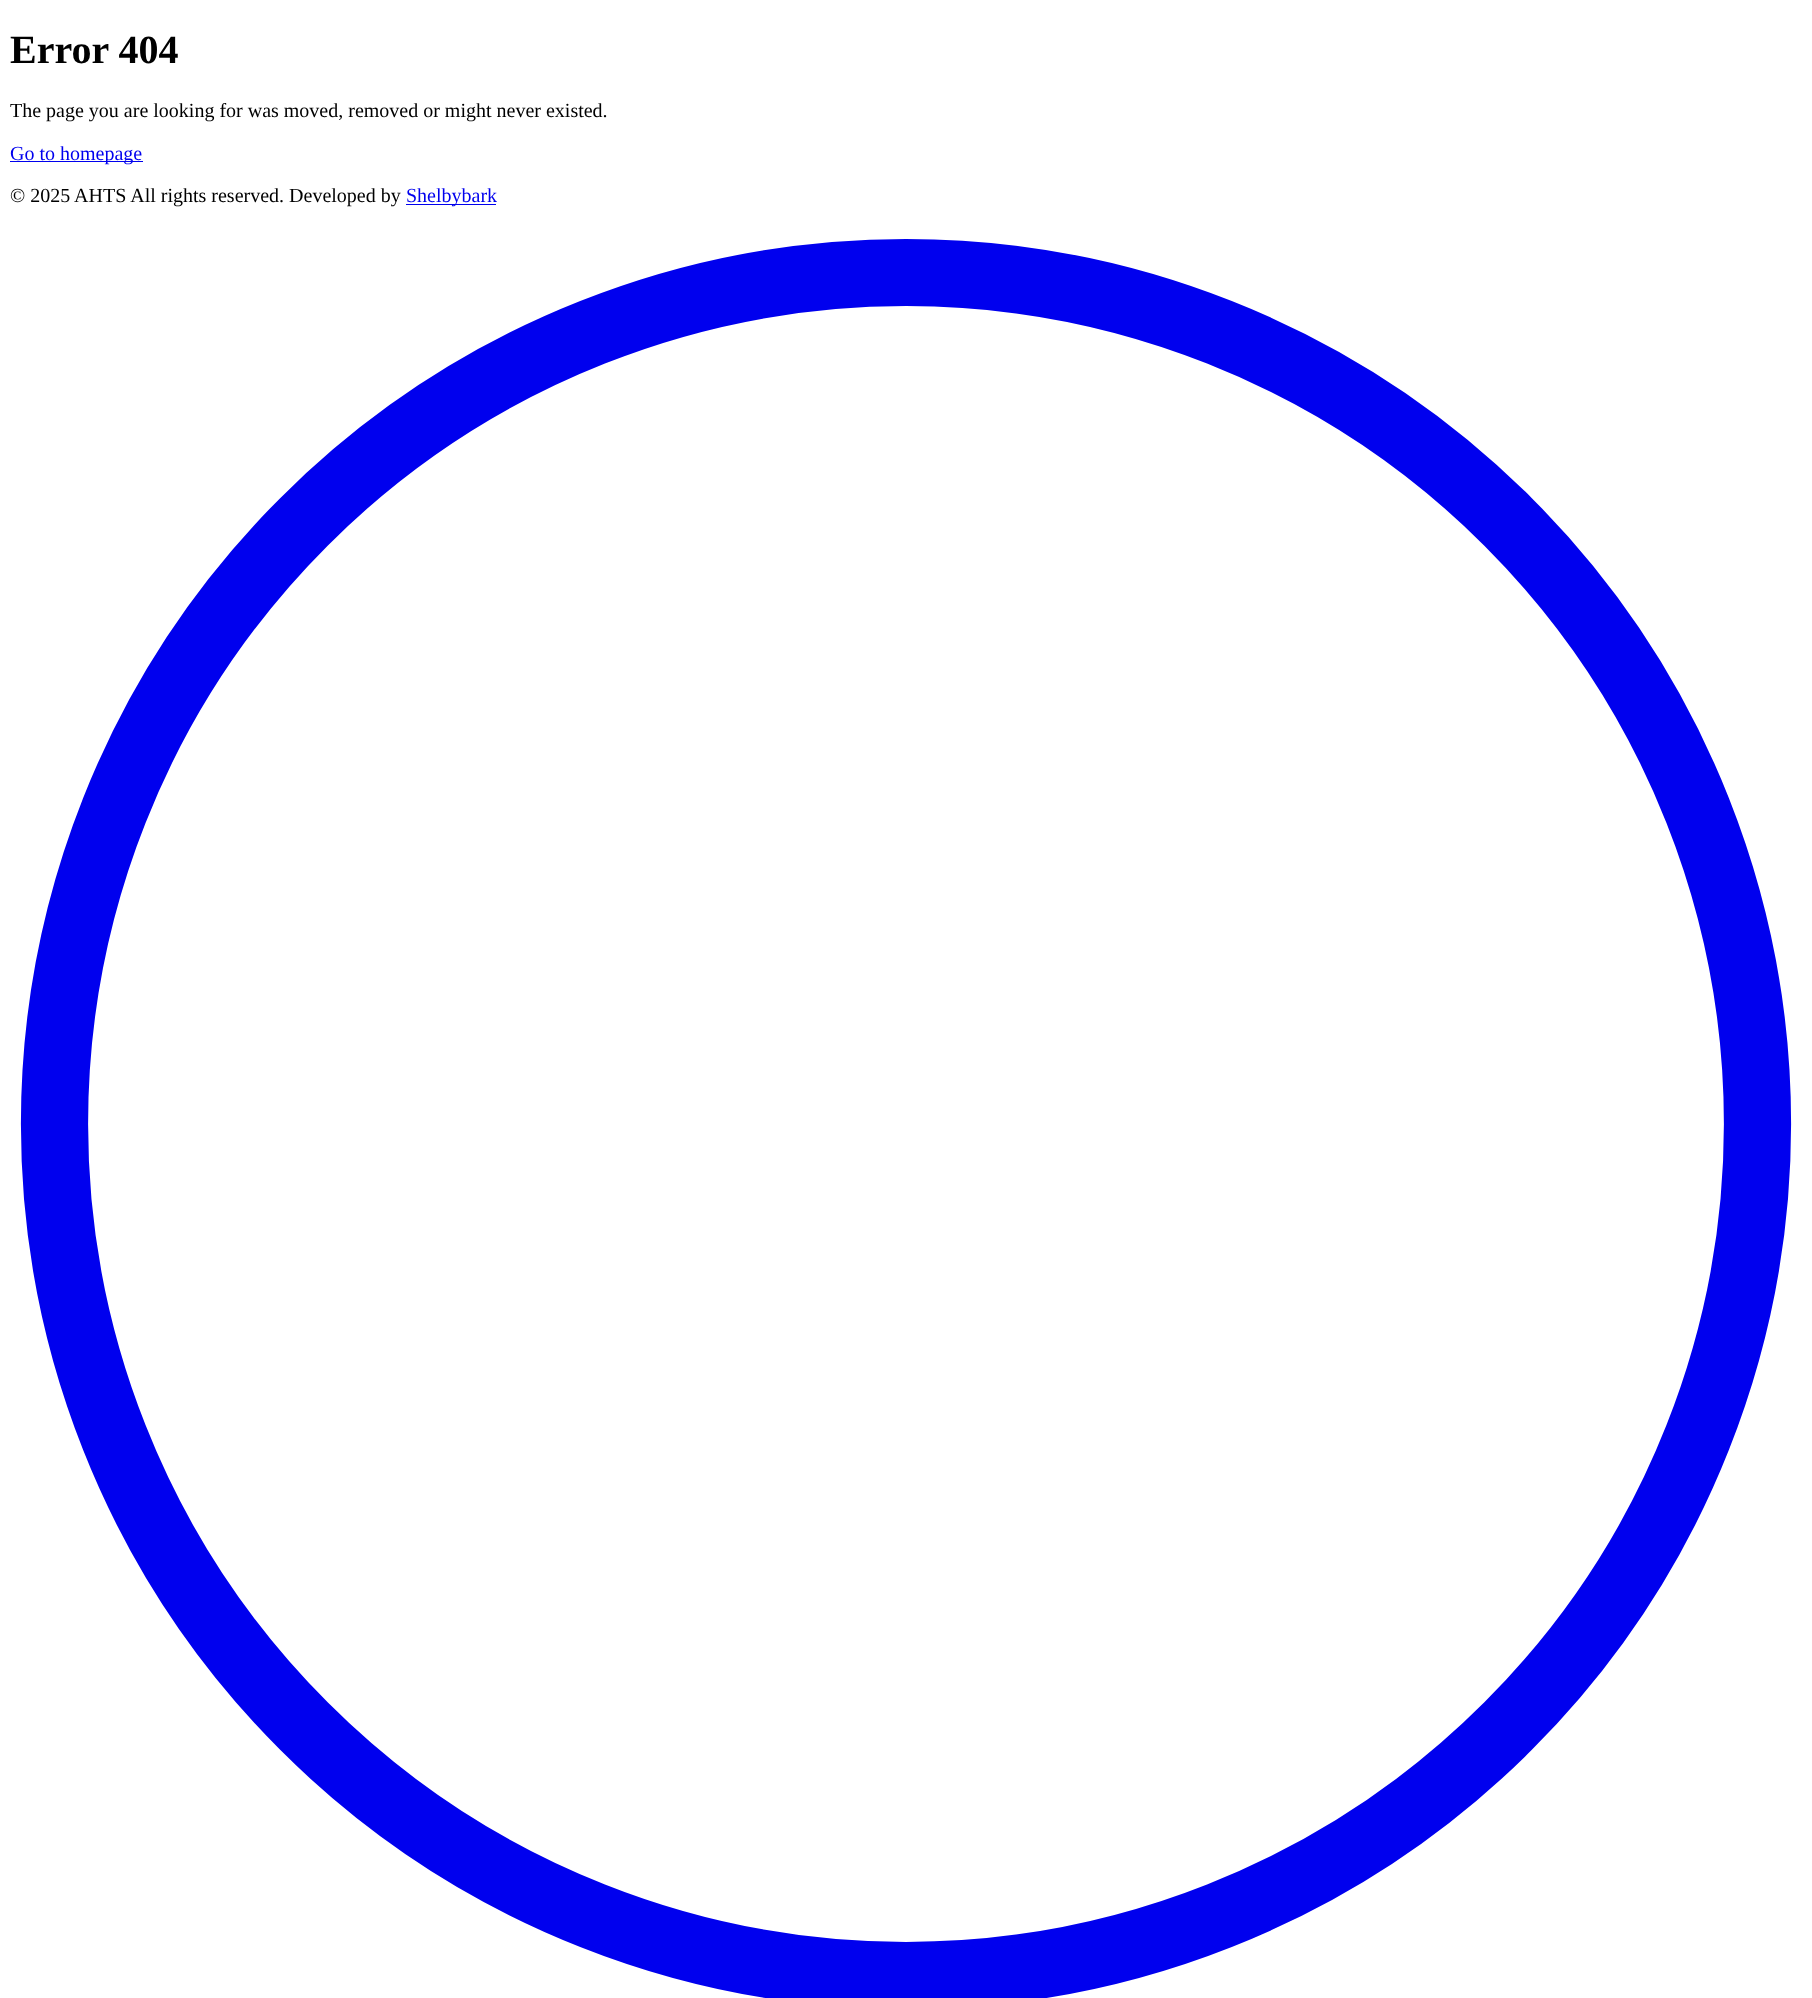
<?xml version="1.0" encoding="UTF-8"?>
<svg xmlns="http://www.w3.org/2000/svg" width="1812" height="1998">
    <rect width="100%" height="100%" fill="#FFFFFF"/>
    <text x="10" y="63" font-family="Liberation Serif" font-size="40" font-weight="700" fill="#000000">Error 404</text>
    <text x="10" y="117" font-family="Liberation Serif" font-size="20" fill="#000000">The page you are looking for was moved, removed or might never existed.</text>
    <rect x="10" y="161" width="133" height="1" fill="#0000EE"/>
    <text x="10" y="160" font-family="Liberation Serif" font-size="20" fill="#0000EE">Go to homepage</text>
    <text x="10" y="202" font-family="Liberation Serif" font-size="20" fill="#000000">© 2025 AHTS All rights reserved. Developed by</text>
    <rect x="406" y="204" width="90" height="1" fill="#0000EE"/>
    <text x="406" y="202" font-family="Liberation Serif" font-size="20" fill="#0000EE">Shelbybark</text>
    <circle cx="906" cy="1124" r="851.5" fill="none" stroke="#0000EE" stroke-width="67.2"/>
</svg>
